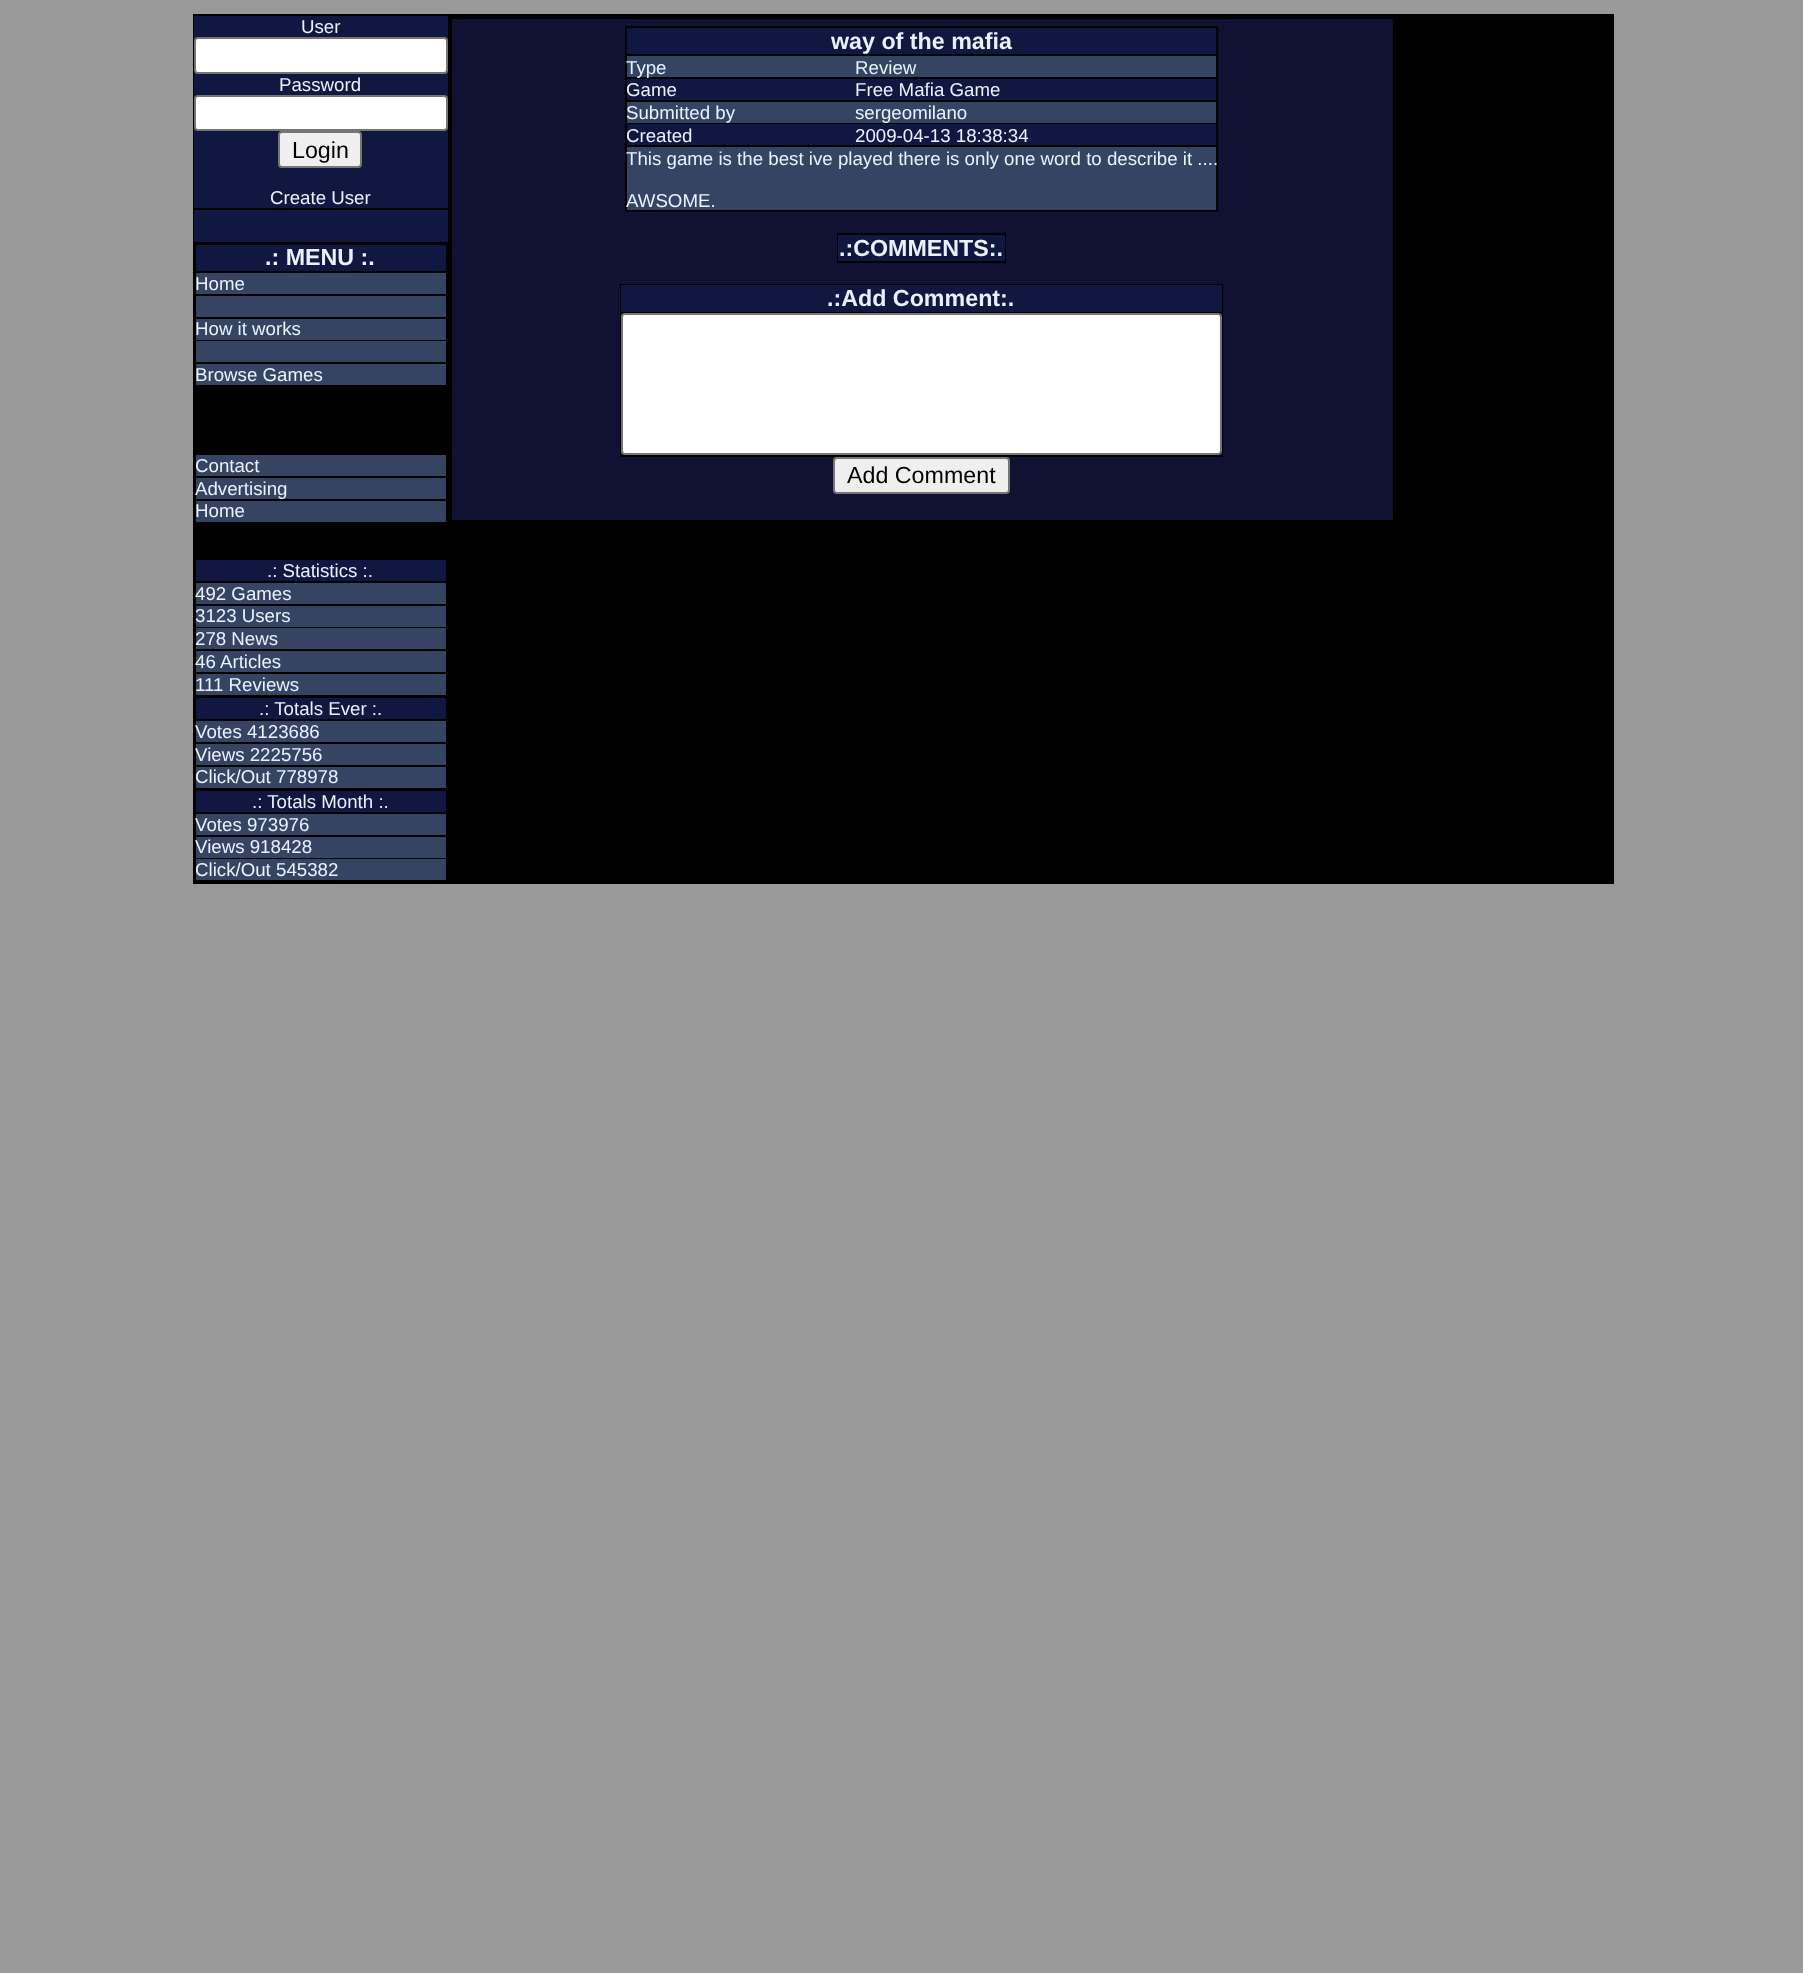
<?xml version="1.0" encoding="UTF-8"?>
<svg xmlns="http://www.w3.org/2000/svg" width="1803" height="1973">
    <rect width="100%" height="100%" fill="#999999"/>
    <rect x="193" y="14" width="1421" height="870" fill="#000000"/>
    <rect x="194" y="16" width="254" height="192" fill="#101842"/>
    <text x="301" y="33" font-family="Liberation Sans" font-size="18.7" fill="#E9F2FC">User</text>
    <rect x="195" y="38" width="252" height="35" rx="3" fill="#FFFFFF" stroke="#767676" stroke-width="2"/>
    <text x="279" y="91" font-family="Liberation Sans" font-size="18.7" fill="#E9F2FC">Password</text>
    <rect x="195" y="96" width="252" height="34" rx="3" fill="#FFFFFF" stroke="#767676" stroke-width="2"/>
    <rect x="279" y="132" width="82" height="35" rx="3" fill="#EFEFEF" stroke="#767676" stroke-width="2"/>
    <text x="292" y="158" font-family="Liberation Sans" font-size="23.25" fill="#000000">Login</text>
    <text x="270" y="204" font-family="Liberation Sans" font-size="18.7" fill="#E9F2FC">Create User</text>
    <rect x="194" y="210" width="254" height="32" fill="#101842"/>
    <rect x="196" y="245" width="250" height="26" fill="#101842"/>
    <text x="265" y="265" font-family="Liberation Sans" font-size="23.25" font-weight="700" fill="#E9F2FC">.: MENU :.</text>
    <rect x="196" y="273" width="250" height="21" fill="#354463"/>
    <text x="195" y="290" font-family="Liberation Sans" font-size="18.7" fill="#E9F2FC">Home</text>
    <rect x="196" y="296" width="250" height="21" fill="#354463"/>
    <rect x="196" y="319" width="250" height="21" fill="#354463"/>
    <text x="195" y="335" font-family="Liberation Sans" font-size="18.7" fill="#E9F2FC">How it works</text>
    <rect x="196" y="341" width="250" height="21" fill="#354463"/>
    <rect x="196" y="364" width="250" height="21" fill="#354463"/>
    <text x="195" y="381" font-family="Liberation Sans" font-size="18.7" fill="#E9F2FC">Browse Games</text>
    <rect x="196" y="455" width="250" height="21" fill="#354463"/>
    <text x="195" y="472" font-family="Liberation Sans" font-size="18.7" fill="#E9F2FC">Contact</text>
    <rect x="196" y="478" width="250" height="21" fill="#354463"/>
    <text x="195" y="495" font-family="Liberation Sans" font-size="18.7" fill="#E9F2FC">Advertising</text>
    <rect x="196" y="501" width="250" height="21" fill="#354463"/>
    <text x="195" y="517" font-family="Liberation Sans" font-size="18.7" fill="#E9F2FC">Home</text>
    <rect x="196" y="560" width="250" height="21" fill="#101842"/>
    <text x="267" y="577" font-family="Liberation Sans" font-size="18.7" fill="#E9F2FC">.: Statistics :.</text>
    <rect x="196" y="583" width="250" height="21" fill="#354463"/>
    <text x="195" y="600" font-family="Liberation Sans" font-size="18.7" fill="#E9F2FC">492 Games</text>
    <rect x="196" y="606" width="250" height="21" fill="#354463"/>
    <text x="195" y="622" font-family="Liberation Sans" font-size="18.7" fill="#E9F2FC">3123 Users</text>
    <rect x="196" y="628" width="250" height="21" fill="#354463"/>
    <text x="195" y="645" font-family="Liberation Sans" font-size="18.7" fill="#E9F2FC">278 News</text>
    <rect x="196" y="651" width="250" height="21" fill="#354463"/>
    <text x="195" y="668" font-family="Liberation Sans" font-size="18.7" fill="#E9F2FC">46 Articles</text>
    <rect x="196" y="674" width="250" height="21" fill="#354463"/>
    <text x="195" y="691" font-family="Liberation Sans" font-size="18.7" fill="#E9F2FC">111 Reviews</text>
    <rect x="196" y="698" width="250" height="21" fill="#101842"/>
    <text x="259" y="715" font-family="Liberation Sans" font-size="18.7" fill="#E9F2FC">.: Totals Ever :.</text>
    <rect x="196" y="721" width="250" height="21" fill="#354463"/>
    <text x="195" y="738" font-family="Liberation Sans" font-size="18.7" fill="#E9F2FC">Votes 4123686</text>
    <rect x="196" y="744" width="250" height="21" fill="#354463"/>
    <text x="195" y="761" font-family="Liberation Sans" font-size="18.7" fill="#E9F2FC">Views 2225756</text>
    <rect x="196" y="767" width="250" height="21" fill="#354463"/>
    <text x="195" y="783" font-family="Liberation Sans" font-size="18.7" fill="#E9F2FC">Click/Out 778978</text>
    <rect x="196" y="791" width="250" height="21" fill="#101842"/>
    <text x="252" y="808" font-family="Liberation Sans" font-size="18.7" fill="#E9F2FC">.: Totals Month :.</text>
    <rect x="196" y="814" width="250" height="21" fill="#354463"/>
    <text x="195" y="831" font-family="Liberation Sans" font-size="18.7" fill="#E9F2FC">Votes 973976</text>
    <rect x="196" y="837" width="250" height="21" fill="#354463"/>
    <text x="195" y="853" font-family="Liberation Sans" font-size="18.7" fill="#E9F2FC">Views 918428</text>
    <rect x="196" y="859" width="250" height="21" fill="#354463"/>
    <text x="195" y="876" font-family="Liberation Sans" font-size="18.7" fill="#E9F2FC">Click/Out 545382</text>
    <rect x="452" y="19" width="941" height="501" fill="#111133"/>
    <rect x="625" y="26" width="593" height="186" fill="#000000"/>
    <rect x="627" y="28" width="589" height="26" fill="#101842"/>
    <text x="831" y="49" font-family="Liberation Sans" font-size="23.25" font-weight="700" fill="#E9F2FC">way of the mafia</text>
    <rect x="627" y="56" width="589" height="21" fill="#354463"/>
    <text x="626" y="74" font-family="Liberation Sans" font-size="18.7" fill="#E9F2FC">Type</text>
    <text x="855" y="74" font-family="Liberation Sans" font-size="18.7" fill="#E9F2FC">Review</text>
    <rect x="627" y="79" width="589" height="21" fill="#101842"/>
    <text x="626" y="96" font-family="Liberation Sans" font-size="18.7" fill="#E9F2FC">Game</text>
    <text x="855" y="96" font-family="Liberation Sans" font-size="18.7" fill="#E9F2FC">Free Mafia Game</text>
    <rect x="627" y="102" width="589" height="21" fill="#354463"/>
    <text x="626" y="119" font-family="Liberation Sans" font-size="18.7" fill="#E9F2FC">Submitted by</text>
    <text x="855" y="119" font-family="Liberation Sans" font-size="18.7" fill="#E9F2FC">sergeomilano</text>
    <rect x="627" y="124" width="589" height="21" fill="#101842"/>
    <text x="626" y="142" font-family="Liberation Sans" font-size="18.7" fill="#E9F2FC">Created</text>
    <text x="855" y="142" font-family="Liberation Sans" font-size="18.7" fill="#E9F2FC">2009-04-13 18:38:34</text>
    <rect x="627" y="147" width="589" height="63" fill="#354463"/>
    <text x="626" y="165" font-family="Liberation Sans" font-size="18.7" fill="#E9F2FC">This game is the best ive played there is only one word to describe it ....</text>
    <text x="626" y="207" font-family="Liberation Sans" font-size="18.7" fill="#E9F2FC">AWSOME.</text>
    <rect x="837" y="233" width="169" height="30" fill="#000000"/>
    <rect x="838" y="235" width="167" height="26" fill="#101842"/>
    <text x="839" y="256" font-family="Liberation Sans" font-size="23.25" font-weight="700" fill="#E9F2FC">.:COMMENTS:.</text>
    <rect x="620" y="284" width="603" height="173" fill="#000000"/>
    <rect x="621" y="285" width="601" height="27" fill="#101842"/>
    <text x="827" y="306" font-family="Liberation Sans" font-size="23.25" font-weight="700" fill="#E9F2FC">.:Add Comment:.</text>
    <rect x="622" y="314" width="599" height="140" rx="3" fill="#FFFFFF" stroke="#767676" stroke-width="2"/>
    <rect x="834" y="458" width="175" height="35" rx="3" fill="#EFEFEF" stroke="#767676" stroke-width="2"/>
    <text x="847" y="483" font-family="Liberation Sans" font-size="23.25" fill="#000000">Add Comment</text>
</svg>
